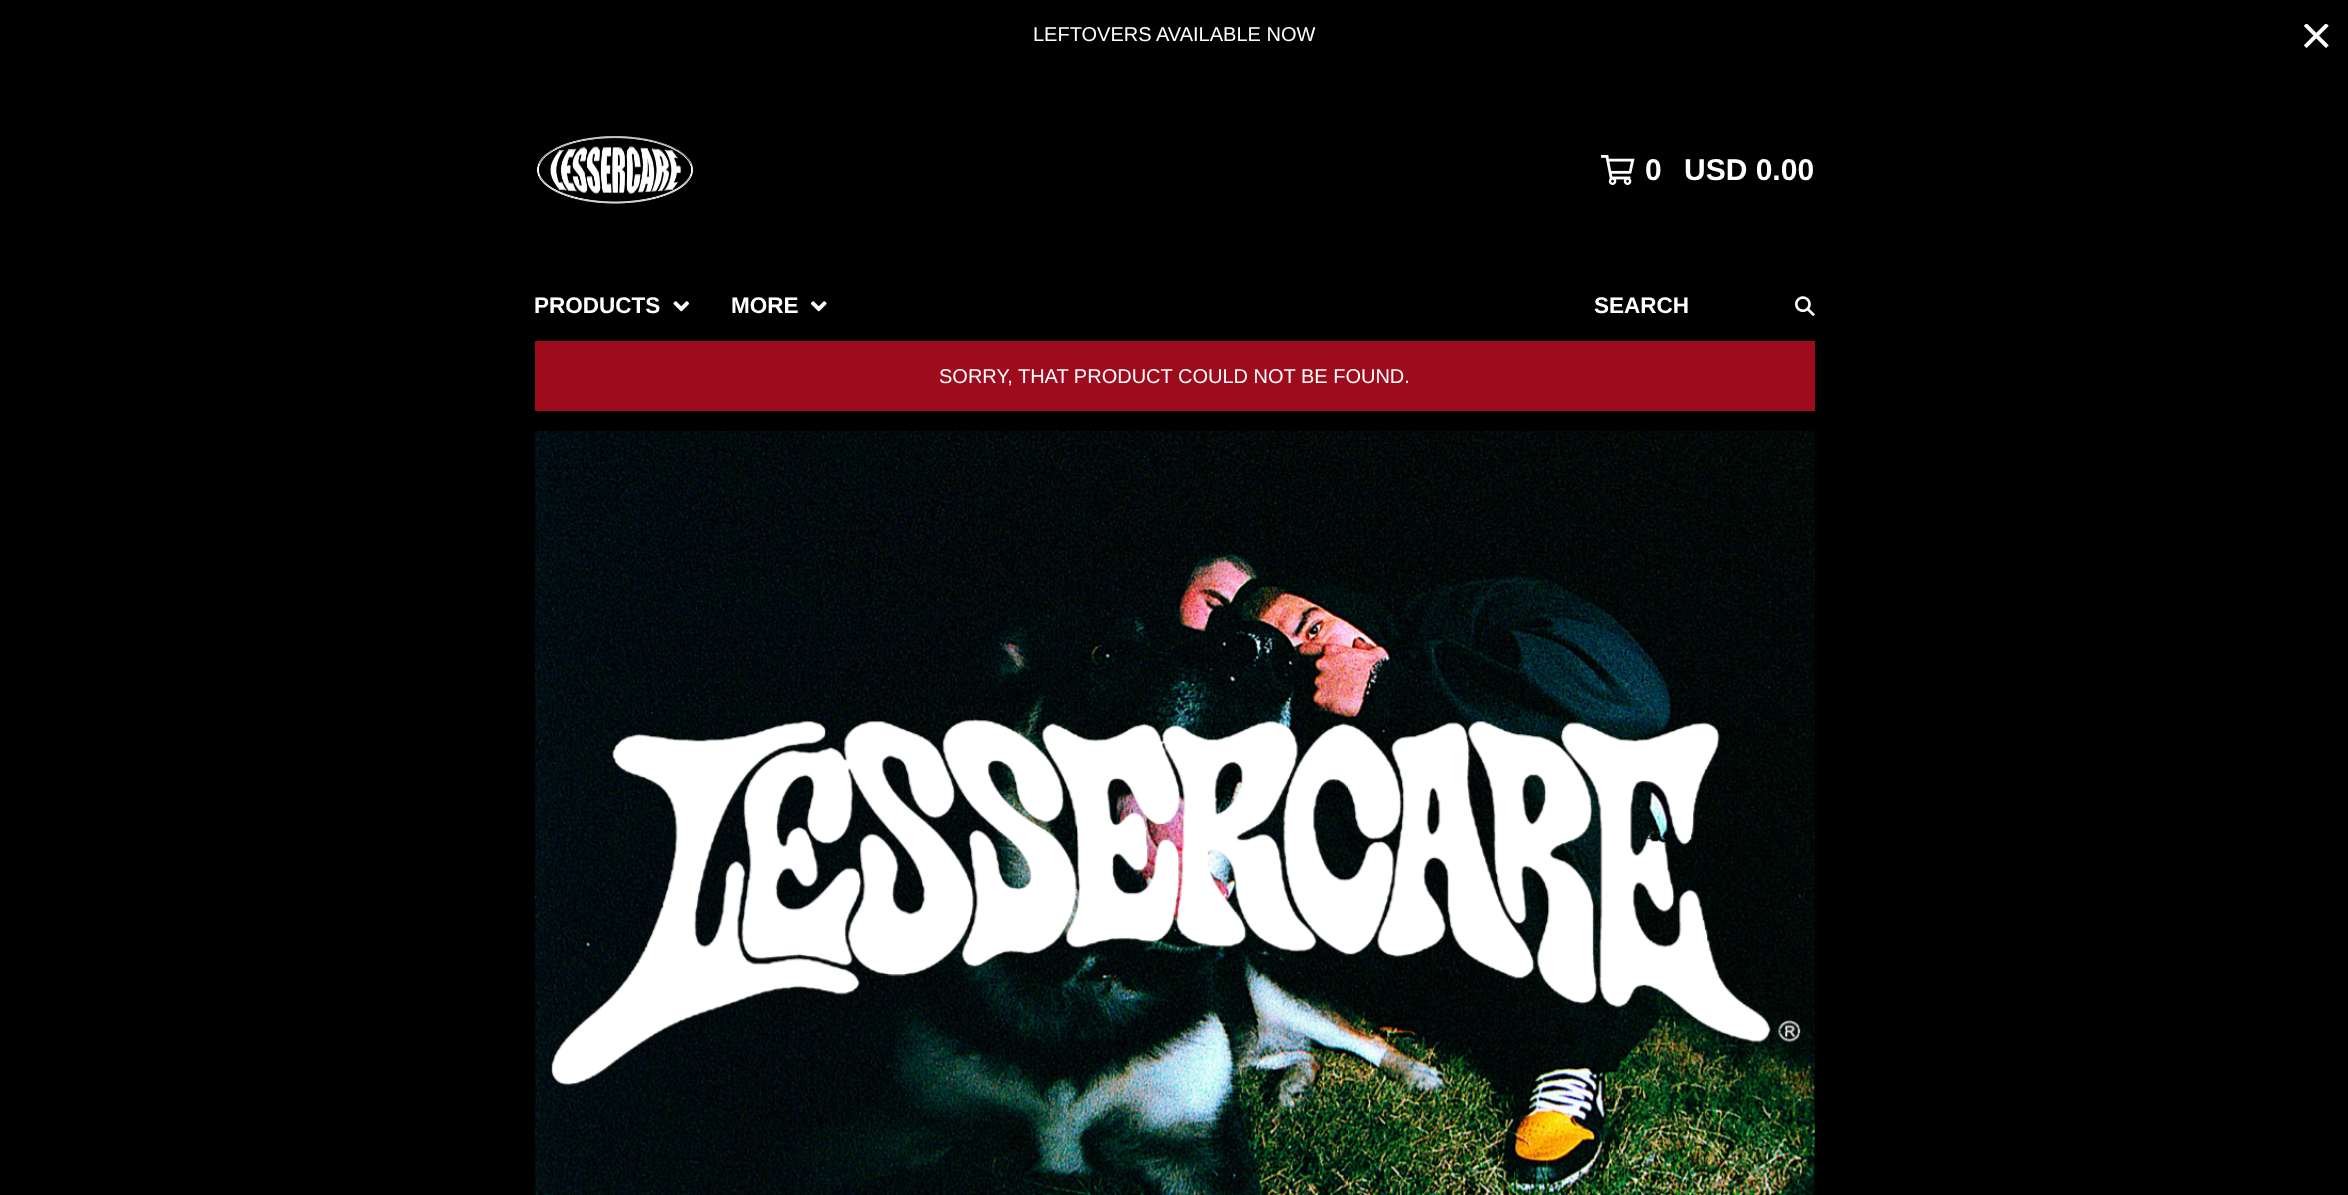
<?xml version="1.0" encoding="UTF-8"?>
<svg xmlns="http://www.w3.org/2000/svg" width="2348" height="1195">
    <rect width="100%" height="100%" fill="#000000"/>
    <text x="1033" y="41" font-family="Liberation Sans" font-size="20" fill="#FFFFFF">LEFTOVERS AVAILABLE NOW</text>
    <image x="2304" y="24" width="25" height="24" href="img_01.png"/>
    <image x="536" y="135" width="158" height="70" href="img_02.png"/>
    <image x="1601" y="155" width="34" height="30" href="img_03.png"/>
    <text x="1645" y="180" font-family="Liberation Sans" font-size="30" font-weight="700" fill="#FFFFFF">0</text>
    <text x="1684" y="180" font-family="Liberation Sans" font-size="30" font-weight="700" fill="#FFFFFF">USD 0.00</text>
    <text x="534" y="313" font-family="Liberation Sans" font-size="22.5" font-weight="700" fill="#FFFFFF">PRODUCTS</text>
    <image x="673" y="301" width="16" height="11" href="img_04.png"/>
    <text x="731" y="313" font-family="Liberation Sans" font-size="22.5" font-weight="700" fill="#FFFFFF">MORE</text>
    <image x="810" y="301" width="17" height="11" href="img_05.png"/>
    <text x="1594" y="313" font-family="Liberation Sans" font-size="22.5" font-weight="700" fill="#FFFFFF">SEARCH</text>
    <image x="1795" y="296" width="20" height="20" href="img_06.png"/>
    <rect x="535" y="341" width="1280" height="70" fill="#9D0B1C"/>
    <text x="939" y="383" font-family="Liberation Sans" font-size="20" fill="#FFFFFF">SORRY, THAT PRODUCT COULD NOT BE FOUND.</text>
    <image x="534" y="431" width="1281" height="764" href="img_07.png"/>
</svg>
